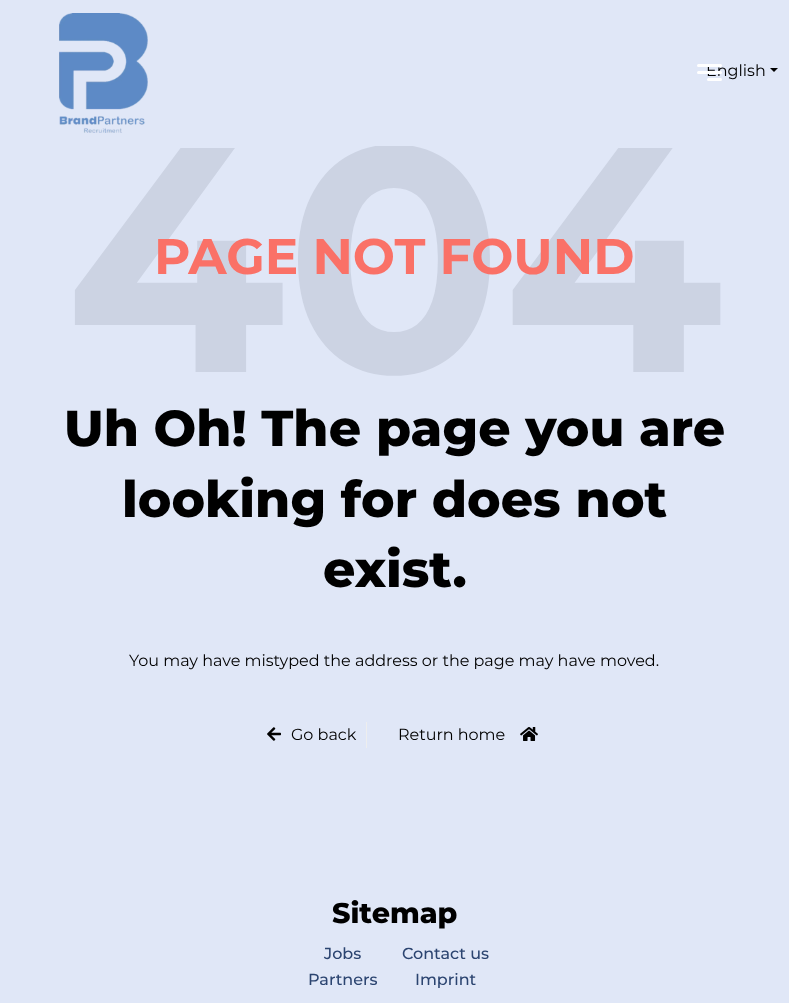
<?xml version="1.0" encoding="UTF-8"?>
<svg xmlns="http://www.w3.org/2000/svg" width="789" height="1003">
    <rect width="100%" height="100%" fill="#E0E7F7"/>
    <text x="65" y="372" font-family="Montserrat" font-size="320" font-weight="700" fill="#CCD3E3">404</text>
    <rect x="376" y="144" width="37" height="2" fill="#E0E7F7"/>
    <image x="59" y="13" width="89" height="120" href="img_01.png"/>
    <text x="706" y="76" font-family="Montserrat" font-size="16" fill="#000000">English</text>
    <rect x="697" y="71" width="25" height="3" rx="1.5" fill="#FFFFFF"/>
    <rect x="697" y="64" width="25" height="3" rx="1.5" fill="#FFFFFF"/>
    <rect x="707" y="78" width="15" height="3" rx="1.5" fill="#FFFFFF"/>
    <path d="M 770 68 H 778 L 774 72 Z" fill="#000000"/>
    <text x="154" y="274" font-family="Montserrat" font-size="50" font-weight="700" fill="#FA7167">PAGE NOT FOUND</text>
    <text x="64" y="446" font-family="Montserrat" font-size="50.5" font-weight="800" fill="#000000">Uh Oh! The page you are</text>
    <text x="122" y="517" font-family="Montserrat" font-size="50.5" font-weight="800" fill="#000000">looking for does not</text>
    <text x="323" y="587" font-family="Montserrat" font-size="50.5" font-weight="800" fill="#000000">exist.</text>
    <text x="129" y="666" font-family="Montserrat" font-size="16" fill="#000000">You may have mistyped the address or the page may have moved.</text>
    <rect x="366" y="722" width="1" height="26" fill="#EEEEEE"/>
    <image x="267" y="727" width="14" height="14" href="img_02.png"/>
    <text x="291" y="740" font-family="Montserrat" font-size="16" fill="#000000">Go back</text>
    <text x="398" y="740" font-family="Montserrat" font-size="16" fill="#000000">Return home</text>
    <image x="520" y="727" width="18" height="14" href="img_03.png"/>
    <text x="332" y="923" font-family="Montserrat" font-size="28.5" font-weight="800" fill="#000000">Sitemap</text>
    <text x="324" y="959" font-family="Montserrat" font-size="16" font-weight="500" fill="#2B4470">Jobs</text>
    <text x="402" y="959" font-family="Montserrat" font-size="16" font-weight="500" fill="#2B4470">Contact us</text>
    <text x="308" y="985" font-family="Montserrat" font-size="16" font-weight="500" fill="#2B4470">Partners</text>
    <text x="415" y="985" font-family="Montserrat" font-size="16" font-weight="500" fill="#2B4470">Imprint</text>
</svg>
